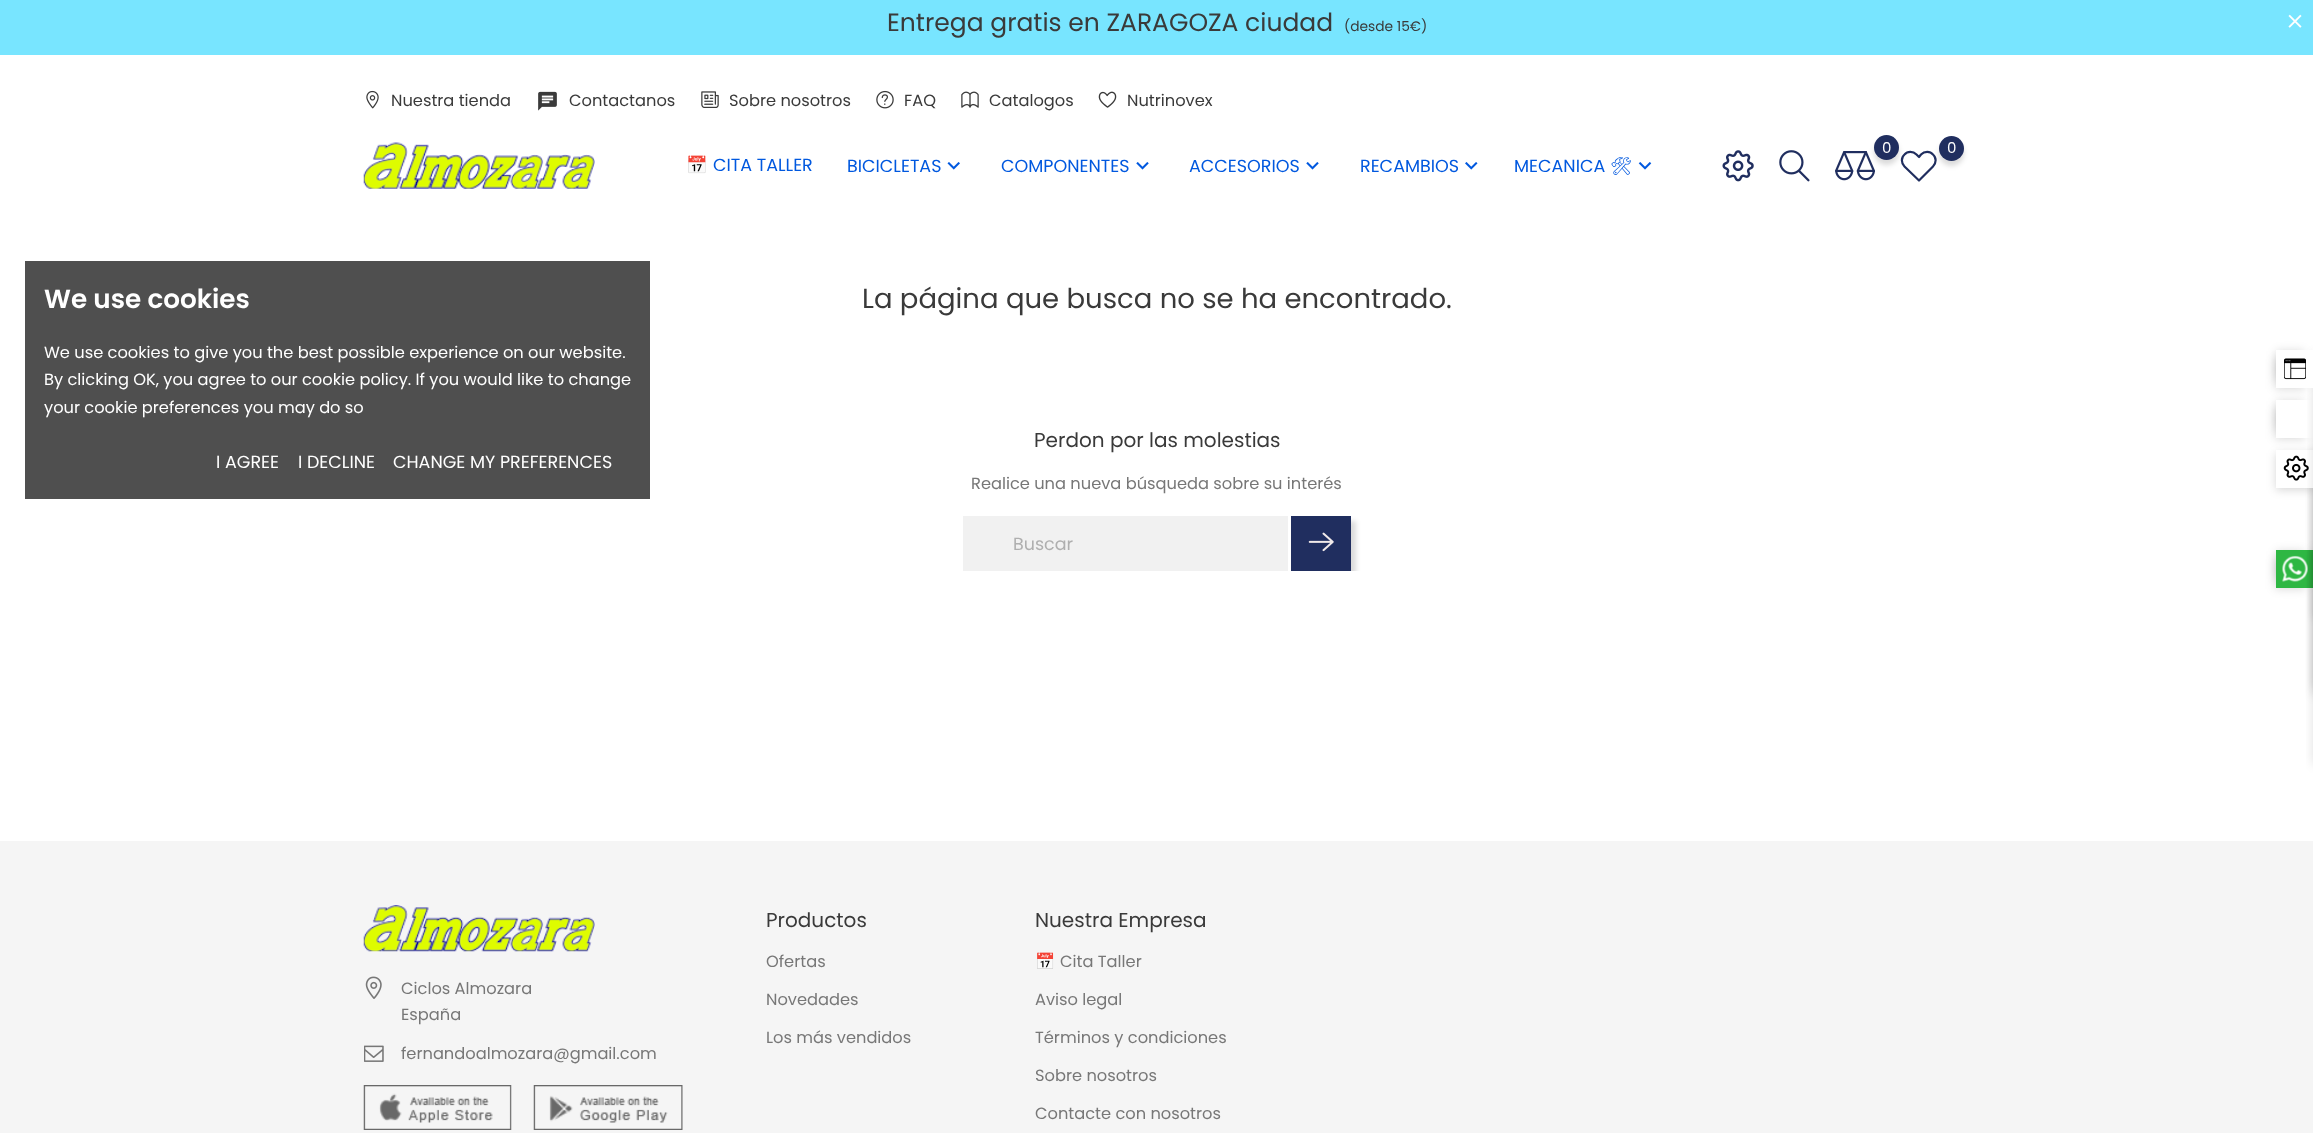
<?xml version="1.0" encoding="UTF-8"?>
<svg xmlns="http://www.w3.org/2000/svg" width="2313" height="1133">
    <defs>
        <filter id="blur1" x="-50%" y="-200%" width="200%" height="500%"><feGaussianBlur stdDeviation="2.5"/></filter>
        <clipPath id="clip1"><rect x="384" y="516" width="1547" height="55"/></clipPath>
        <filter id="blur2" x="-50%" y="-200%" width="200%" height="500%"><feGaussianBlur stdDeviation="5"/></filter>
        <filter id="blur3" x="-50%" y="-200%" width="200%" height="500%"><feGaussianBlur stdDeviation="5.5"/></filter>
    </defs>
    <rect width="100%" height="100%" fill="#FFFFFF"/>
    <rect x="0" y="0" width="2313" height="55" fill="#78E5FF"/>
    <text x="887" y="31" font-family="Poppins" font-size="25" fill="#3A3A3A">Entrega gratis en ZARAGOZA ciudad</text>
    <text x="1344" y="31" font-family="Poppins" font-size="13.75" fill="#3A3A3A">(desde 15€)</text>
    <image x="2288" y="14" width="14" height="14" href="img_01.png"/>
    <rect x="25" y="261" width="625" height="238" fill="#4F4F4F"/>
    <text x="44" y="308" font-family="Poppins" font-size="26.25" font-weight="600" fill="#FFFFFF">We use cookies</text>
    <text font-family="Poppins" font-size="16.25" fill="#FFFFFF">
        <tspan x="44" y="358">We use cookies to give you the best possible experience on our website.</tspan>
        <tspan x="44" y="385">By clicking OK, you agree to our cookie policy. If you would like to change</tspan>
        <tspan x="44" y="413">your cookie preferences you may do so</tspan>
    </text>
    <text x="216" y="468" font-family="Poppins" font-size="17.5" fill="#FFFFFF">I AGREE</text>
    <text x="298" y="468" font-family="Poppins" font-size="17.5" fill="#FFFFFF">I DECLINE</text>
    <text x="393" y="468" font-family="Poppins" font-size="17.5" fill="#FFFFFF">CHANGE MY PREFERENCES</text>
    <image x="366" y="90" width="13" height="19" href="img_02.png"/>
    <text x="391" y="106" font-family="Poppins" font-size="16.25" fill="#3A3A3A">Nuestra tienda</text>
    <image x="538" y="91" width="19" height="20" href="img_03.png"/>
    <text x="569" y="106" font-family="Poppins" font-size="16.25" fill="#3A3A3A">Contactanos</text>
    <image x="701" y="91" width="18" height="17" href="img_04.png"/>
    <text x="729" y="106" font-family="Poppins" font-size="16.25" fill="#3A3A3A">Sobre nosotros</text>
    <image x="876" y="90" width="18" height="19" href="img_05.png"/>
    <text x="904" y="106" font-family="Poppins" font-size="16.25" fill="#3A3A3A">FAQ</text>
    <image x="961" y="91" width="18" height="17" href="img_06.png"/>
    <text x="989" y="106" font-family="Poppins" font-size="16.25" fill="#3A3A3A">Catalogos</text>
    <image x="1098" y="91" width="19" height="17" href="img_07.png"/>
    <text x="1127" y="106" font-family="Poppins" font-size="16.25" fill="#3A3A3A">Nutrinovex</text>
    <image x="363" y="142" width="232" height="47" href="img_08.png"/>
    <image x="1835" y="151" width="40" height="30" href="img_09.png"/>
    <rect x="1874" y="140" width="25" height="25" rx="12.5" fill="#000000" fill-opacity="0.14" filter="url(#blur1)"/>
    <circle cx="1886.5" cy="147.5" r="12.5" fill="#202E5F"/>
    <text x="1882" y="153" font-family="Poppins" font-size="15" fill="#FFFFFF">0</text>
    <path d="M 1904.5 154.5 C 1901 157.5 1901 163 1904.5 166.5 L 1919 180.5 L 1933 166.5 C 1936.5 163 1936.5 157.5 1933 154.5 C 1930 151 1924.5 151 1921 154.5 L 1919 157 L 1916.5 154.5 C 1913 151 1907.5 151 1904.5 154.5 Z" fill="none" stroke="#202E5F" stroke-width="2.2" stroke-linecap="round" stroke-linejoin="round"/>
    <rect x="1939" y="141" width="25" height="25" rx="12.5" fill="#000000" fill-opacity="0.14" filter="url(#blur1)"/>
    <circle cx="1951.5" cy="148.5" r="12.5" fill="#202E5F"/>
    <text x="1947" y="153" font-family="Poppins" font-size="15" fill="#FFFFFF">0</text>
    <image x="1722" y="150" width="32" height="32" href="img_10.png"/>
    <image x="1779" y="150" width="31" height="32" href="img_11.png"/>
    <text x="686" y="171" font-family="Noto Color Emoji" font-size="17.5" fill="#0058DF">📅</text>
    <text x="713" y="171" font-family="Poppins" font-size="17.5" fill="#0058DF">CITA TALLER</text>
    <text x="847" y="172" font-family="Poppins" font-size="17.5" fill="#0058DF">BICICLETAS</text>
    <image x="947" y="162" width="13" height="8" href="img_12.png"/>
    <text x="1001" y="172" font-family="Poppins" font-size="17.5" fill="#0058DF">COMPONENTES</text>
    <image x="1136" y="162" width="13" height="8" href="img_13.png"/>
    <text x="1189" y="172" font-family="Poppins" font-size="17.5" fill="#0058DF">ACCESORIOS</text>
    <image x="1306" y="162" width="13" height="8" href="img_13.png"/>
    <text x="1360" y="172" font-family="Poppins" font-size="17.5" fill="#0058DF">RECAMBIOS</text>
    <image x="1465" y="162" width="13" height="8" href="img_14.png"/>
    <text x="1514" y="172" font-family="Poppins" font-size="17.5" fill="#0058DF">MECANICA</text>
    <text x="1610" y="172" font-family="Noto Emoji" font-size="17.5" fill="#0058DF">🛠</text>
    <image x="1638" y="162" width="14" height="8" href="img_15.png"/>
    <text x="862" y="308" font-family="Poppins" font-size="27.5" fill="#3A3A3A">La página que busca no se ha encontrado.</text>
    <text x="1034" y="447" font-family="Poppins" font-size="20" fill="#3A3A3A">Perdon por las molestias</text>
    <text x="971" y="489" font-family="Poppins" font-size="16.25" fill="#777777">Realice una nueva búsqueda sobre su interés</text>
    <rect x="963" y="516" width="325" height="55" fill="#F1F1F1"/>
    <text x="1013" y="550" font-family="Poppins" font-size="17.5" fill="#AFAFAF">Buscar</text>
    <g clip-path="url(#clip1)">
        <rect x="1296" y="521" width="60" height="55" fill="#000000" fill-opacity="0.14" filter="url(#blur1)"/>
    </g>
    <rect x="1291" y="516" width="60" height="55" fill="#202E5F"/>
    <image x="1308" y="532" width="26" height="20" href="img_16.png"/>
    <rect x="2275" y="409" width="30" height="30" fill="#000000" fill-opacity="0.15" filter="url(#blur2)"/>
    <rect x="2276" y="401" width="28" height="28" fill="#000000" fill-opacity="0.15" filter="url(#blur2)"/>
    <rect x="2276" y="400" width="37" height="38" fill="#FFFFFF"/>
    <rect x="2275" y="559" width="30" height="30" fill="#000000" fill-opacity="0.15" filter="url(#blur2)"/>
    <rect x="2276" y="551" width="28" height="28" fill="#000000" fill-opacity="0.15" filter="url(#blur2)"/>
    <rect x="2276" y="550" width="37" height="38" fill="#2EB743"/>
    <image x="2282" y="555" width="26" height="27" href="img_19.png"/>
    <rect x="2313" y="459" width="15" height="237" fill="#000000" fill-opacity="0.15" filter="url(#blur2)"/>
    <rect x="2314" y="451" width="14" height="235" fill="#000000" fill-opacity="0.15" filter="url(#blur2)"/>
    <rect x="2276" y="453" width="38" height="37" fill="#000000" fill-opacity="0.16" filter="url(#blur2)"/>
    <rect x="2276" y="450" width="37" height="38" fill="#FFFFFF"/>
    <image x="2283" y="455" width="26" height="26" href="img_18.png"/>
    <rect x="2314" y="353" width="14" height="265" fill="#000000" fill-opacity="0.16" filter="url(#blur2)"/>
    <rect x="2275" y="359" width="30" height="30" fill="#000000" fill-opacity="0.15" filter="url(#blur2)"/>
    <rect x="2276" y="351" width="28" height="28" fill="#000000" fill-opacity="0.15" filter="url(#blur2)"/>
    <rect x="2276" y="350" width="37" height="38" fill="#FFFFFF"/>
    <image x="2284" y="358" width="22" height="22" href="img_17.png"/>
    <rect x="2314" y="550" width="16" height="214" fill="#000000" fill-opacity="0.15" filter="url(#blur3)"/>
    <rect x="0" y="841" width="2313" height="292" fill="#F5F5F5"/>
    <image x="363" y="905" width="232" height="47" href="img_20.png"/>
    <image x="365" y="976" width="17" height="23" href="img_21.png"/>
    <text font-family="Poppins" font-size="16.25" fill="#777777">
        <tspan x="401" y="994">Ciclos Almozara</tspan>
        <tspan x="401" y="1020">España</tspan>
    </text>
    <image x="364" y="1045" width="20" height="17" href="img_22.png"/>
    <text x="401" y="1059" font-family="Poppins" font-size="16.25" fill="#777777">fernandoalmozara@gmail.com</text>
    <image x="363" y="1085" width="149" height="45" href="img_23.png"/>
    <image x="533" y="1085" width="150" height="45" href="img_24.png"/>
    <text x="766" y="927" font-family="Poppins" font-size="20" fill="#3A3A3A">Productos</text>
    <text x="766" y="967" font-family="Poppins" font-size="16.25" fill="#777777">Ofertas</text>
    <text x="766" y="1005" font-family="Poppins" font-size="16.25" fill="#777777">Novedades</text>
    <text x="766" y="1043" font-family="Poppins" font-size="16.25" fill="#777777">Los más vendidos</text>
    <text x="1035" y="927" font-family="Poppins" font-size="20" fill="#3A3A3A">Nuestra Empresa</text>
    <text x="1035" y="967" font-family="Noto Color Emoji" font-size="16.25" fill="#777777">📅</text>
    <text x="1060" y="967" font-family="Poppins" font-size="16.25" fill="#777777">Cita Taller</text>
    <text x="1035" y="1005" font-family="Poppins" font-size="16.25" fill="#777777">Aviso legal</text>
    <text x="1035" y="1043" font-family="Poppins" font-size="16.25" fill="#777777">Términos y condiciones</text>
    <text x="1035" y="1081" font-family="Poppins" font-size="16.25" fill="#777777">Sobre nosotros</text>
    <text x="1035" y="1119" font-family="Poppins" font-size="16.25" fill="#777777">Contacte con nosotros</text>
</svg>
